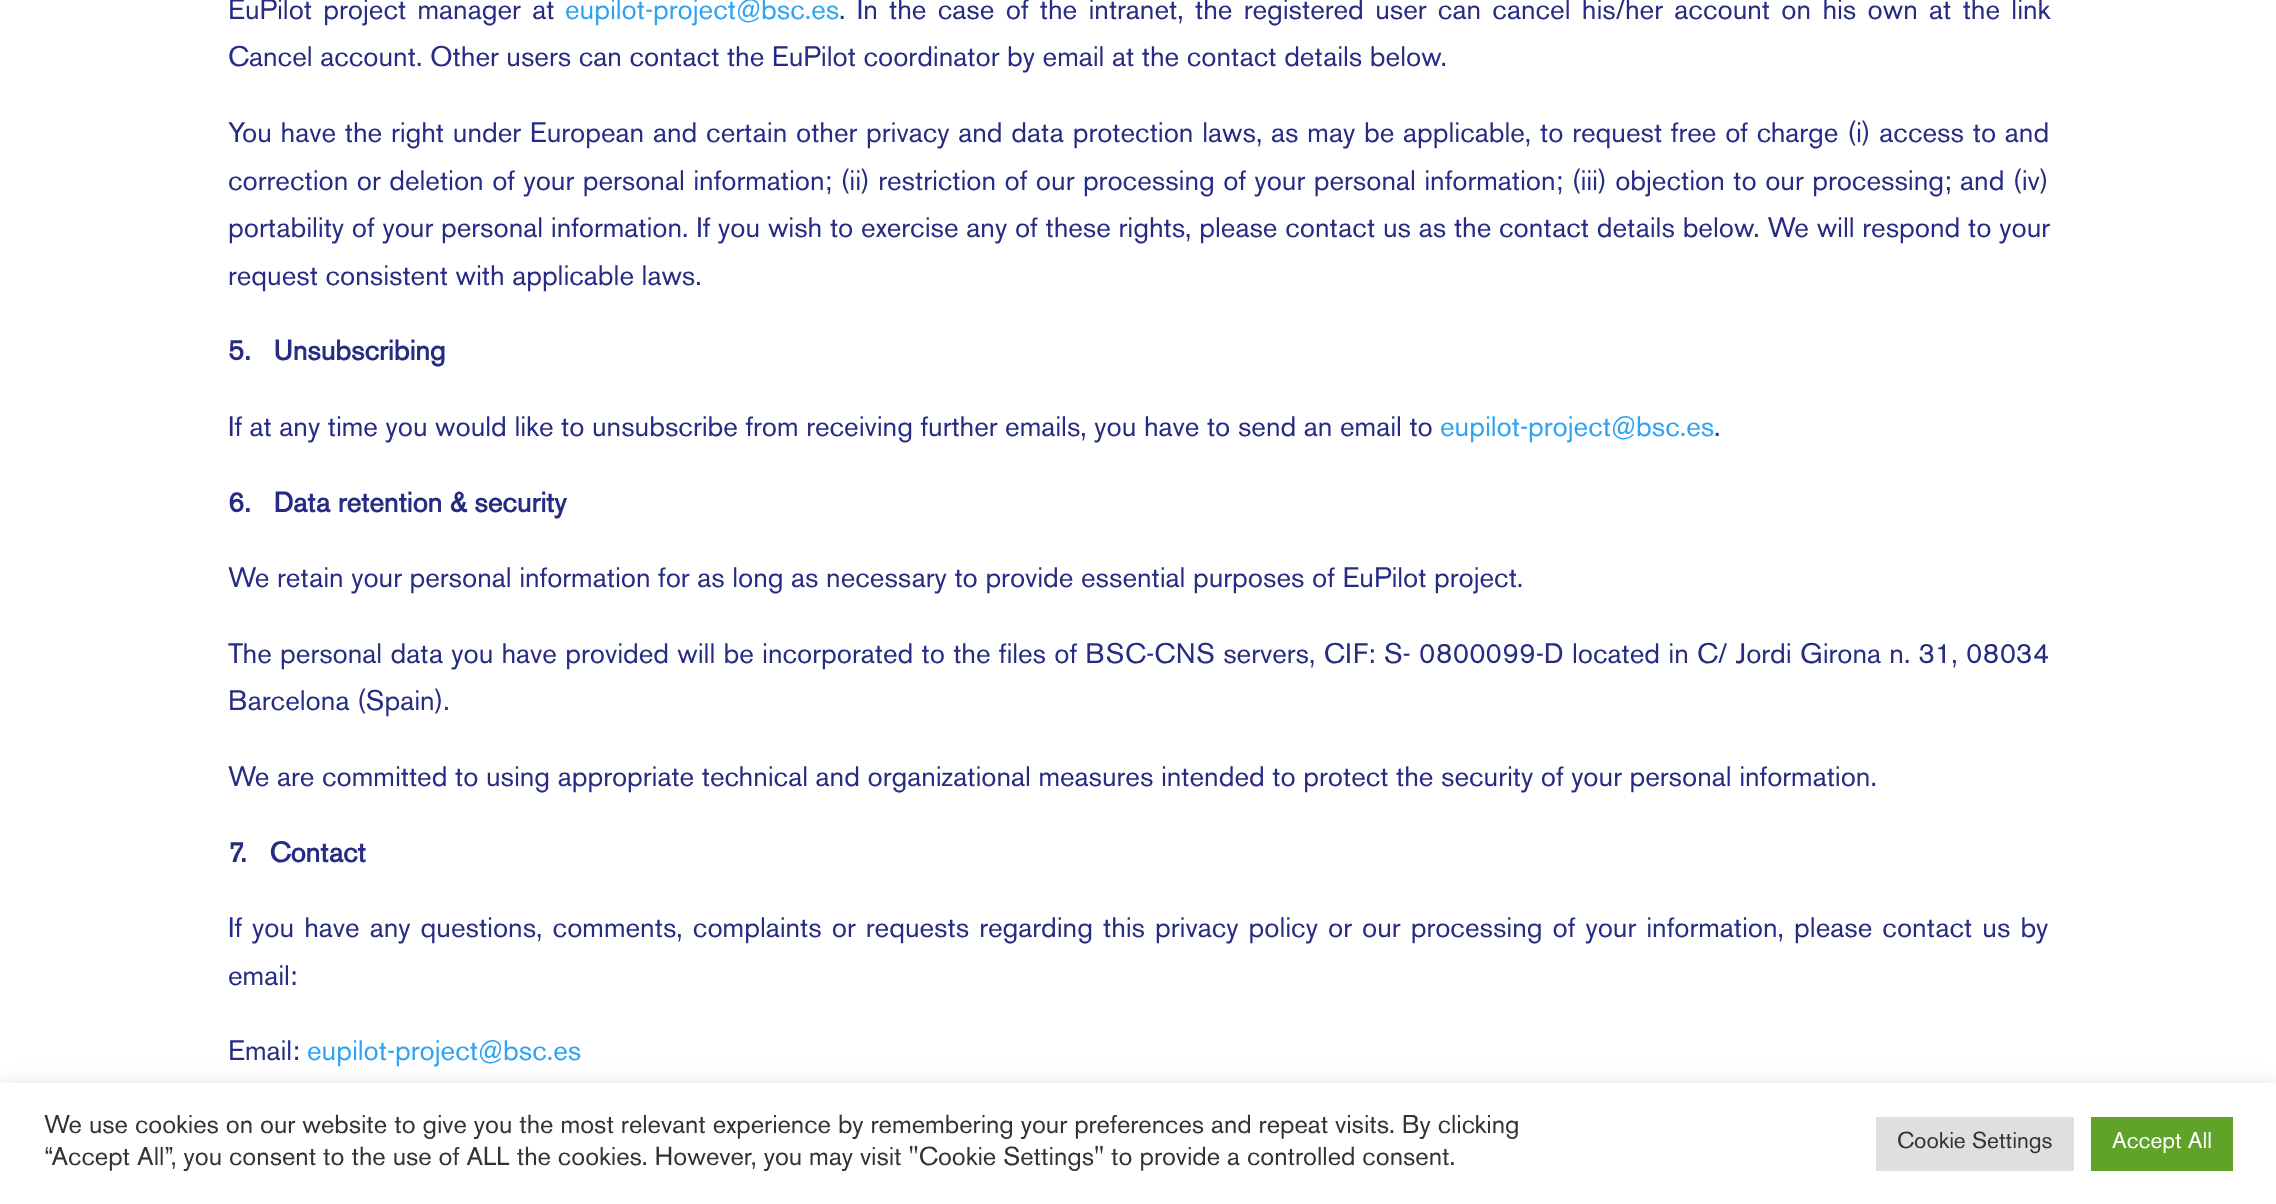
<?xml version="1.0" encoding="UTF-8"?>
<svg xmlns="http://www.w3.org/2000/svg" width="2276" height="1204">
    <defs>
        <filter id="blur1" x="-50%" y="-200%" width="200%" height="500%"><feGaussianBlur stdDeviation="9"/></filter>
    </defs>
    <rect width="100%" height="100%" fill="#FFFFFF"/>
    <text x="228" y="19" word-spacing="3.75" font-family="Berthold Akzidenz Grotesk" font-size="28" fill="#262B83">EuPilot project manager at</text>
    <text x="565" y="19" font-family="Berthold Akzidenz Grotesk" font-size="28" fill="#2EA3F2">eupilot-project@bsc.es</text>
    <text x="839" y="19" word-spacing="3.75" font-family="Berthold Akzidenz Grotesk" font-size="28" fill="#262B83">. In the case of the intranet, the registered user can cancel his/her account on his own at the link</text>
    <text x="228" y="66" font-family="Berthold Akzidenz Grotesk" font-size="28" fill="#262B83">Cancel account. Other users can contact the EuPilot coordinator by email at the contact details below.</text>
    <text font-family="Berthold Akzidenz Grotesk" font-size="28" fill="#262B83">
        <tspan x="228" y="142" word-spacing="1.2">You have the right under European and certain other privacy and data protection laws, as may be applicable, to request free of charge (i) access to and</tspan>
        <tspan x="228" y="190" word-spacing="0.9">correction or deletion of your personal information; (ii) restriction of our processing of your personal information; (iii) objection to our processing; and (iv)</tspan>
        <tspan x="228" y="237" word-spacing="0.2">portability of your personal information. If you wish to exercise any of these rights, please contact us as the contact details below. We will respond to your</tspan>
        <tspan x="228" y="285">request consistent with applicable laws.</tspan>
    </text>
    <text x="228" y="360" font-family="Berthold Akzidenz Grotesk" font-size="28" font-weight="700" fill="#262B83" xml:space="preserve">5.   Unsubscribing</text>
    <text x="228" y="436" font-family="Berthold Akzidenz Grotesk" font-size="28" fill="#262B83">If at any time you would like to unsubscribe from receiving further emails, you have to send an email to</text>
    <text x="1440" y="436" font-family="Berthold Akzidenz Grotesk" font-size="28" fill="#2EA3F2">eupilot-project@bsc.es</text>
    <text x="1714" y="436" font-family="Berthold Akzidenz Grotesk" font-size="28" fill="#262B83">.</text>
    <text x="228" y="512" font-family="Berthold Akzidenz Grotesk" font-size="28" font-weight="700" fill="#262B83" xml:space="preserve">6.   Data retention &amp; security</text>
    <text x="228" y="587" font-family="Berthold Akzidenz Grotesk" font-size="28" fill="#262B83">We retain your personal information for as long as necessary to provide essential purposes of EuPilot project.</text>
    <text font-family="Berthold Akzidenz Grotesk" font-size="28" fill="#262B83">
        <tspan x="228" y="663" word-spacing="0.7">The personal data you have provided will be incorporated to the files of BSC-CNS servers, CIF: S- 0800099-D located in C/ Jordi Girona n. 31, 08034</tspan>
        <tspan x="228" y="710">Barcelona (Spain).</tspan>
    </text>
    <text x="228" y="786" font-family="Berthold Akzidenz Grotesk" font-size="28" fill="#262B83">We are committed to using appropriate technical and organizational measures intended to protect the security of your personal information.</text>
    <text x="228" y="862" font-family="Berthold Akzidenz Grotesk" font-size="28" font-weight="700" fill="#262B83" xml:space="preserve">7.   Contact</text>
    <text font-family="Berthold Akzidenz Grotesk" font-size="28" fill="#262B83">
        <tspan x="228" y="937" word-spacing="2.5">If you have any questions, comments, complaints or requests regarding this privacy policy or our processing of your information, please contact us by</tspan>
        <tspan x="228" y="985">email:</tspan>
    </text>
    <text x="228" y="1060" font-family="Berthold Akzidenz Grotesk" font-size="28" fill="#262B83">Email:</text>
    <text x="307" y="1060" font-family="Berthold Akzidenz Grotesk" font-size="28" fill="#2EA3F2">eupilot-project@bsc.es</text>
    <rect x="0" y="1082" width="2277" height="120" fill="#ACABAB" fill-opacity="0.3" filter="url(#blur1)"/>
    <rect x="0" y="1083" width="2276" height="121" fill="#FFFFFF"/>
    <text font-family="Berthold Akzidenz Grotesk" font-size="25.67" fill="#333333">
        <tspan x="44" y="1133">We use cookies on our website to give you the most relevant experience by remembering your preferences and repeat visits. By clicking</tspan>
        <tspan x="44" y="1165">“Accept All”, you consent to the use of ALL the cookies. However, you may visit "Cookie Settings" to provide a controlled consent.</tspan>
    </text>
    <rect x="1876" y="1117" width="198" height="54" fill="#DEDFE0"/>
    <text x="1897" y="1148" font-family="Berthold Akzidenz Grotesk" font-size="22.75" fill="#333333">Cookie Settings</text>
    <rect x="2091" y="1117" width="142" height="54" fill="#61A229"/>
    <text x="2112" y="1148" font-family="Berthold Akzidenz Grotesk" font-size="22.75" fill="#FFFFFF">Accept All</text>
</svg>
